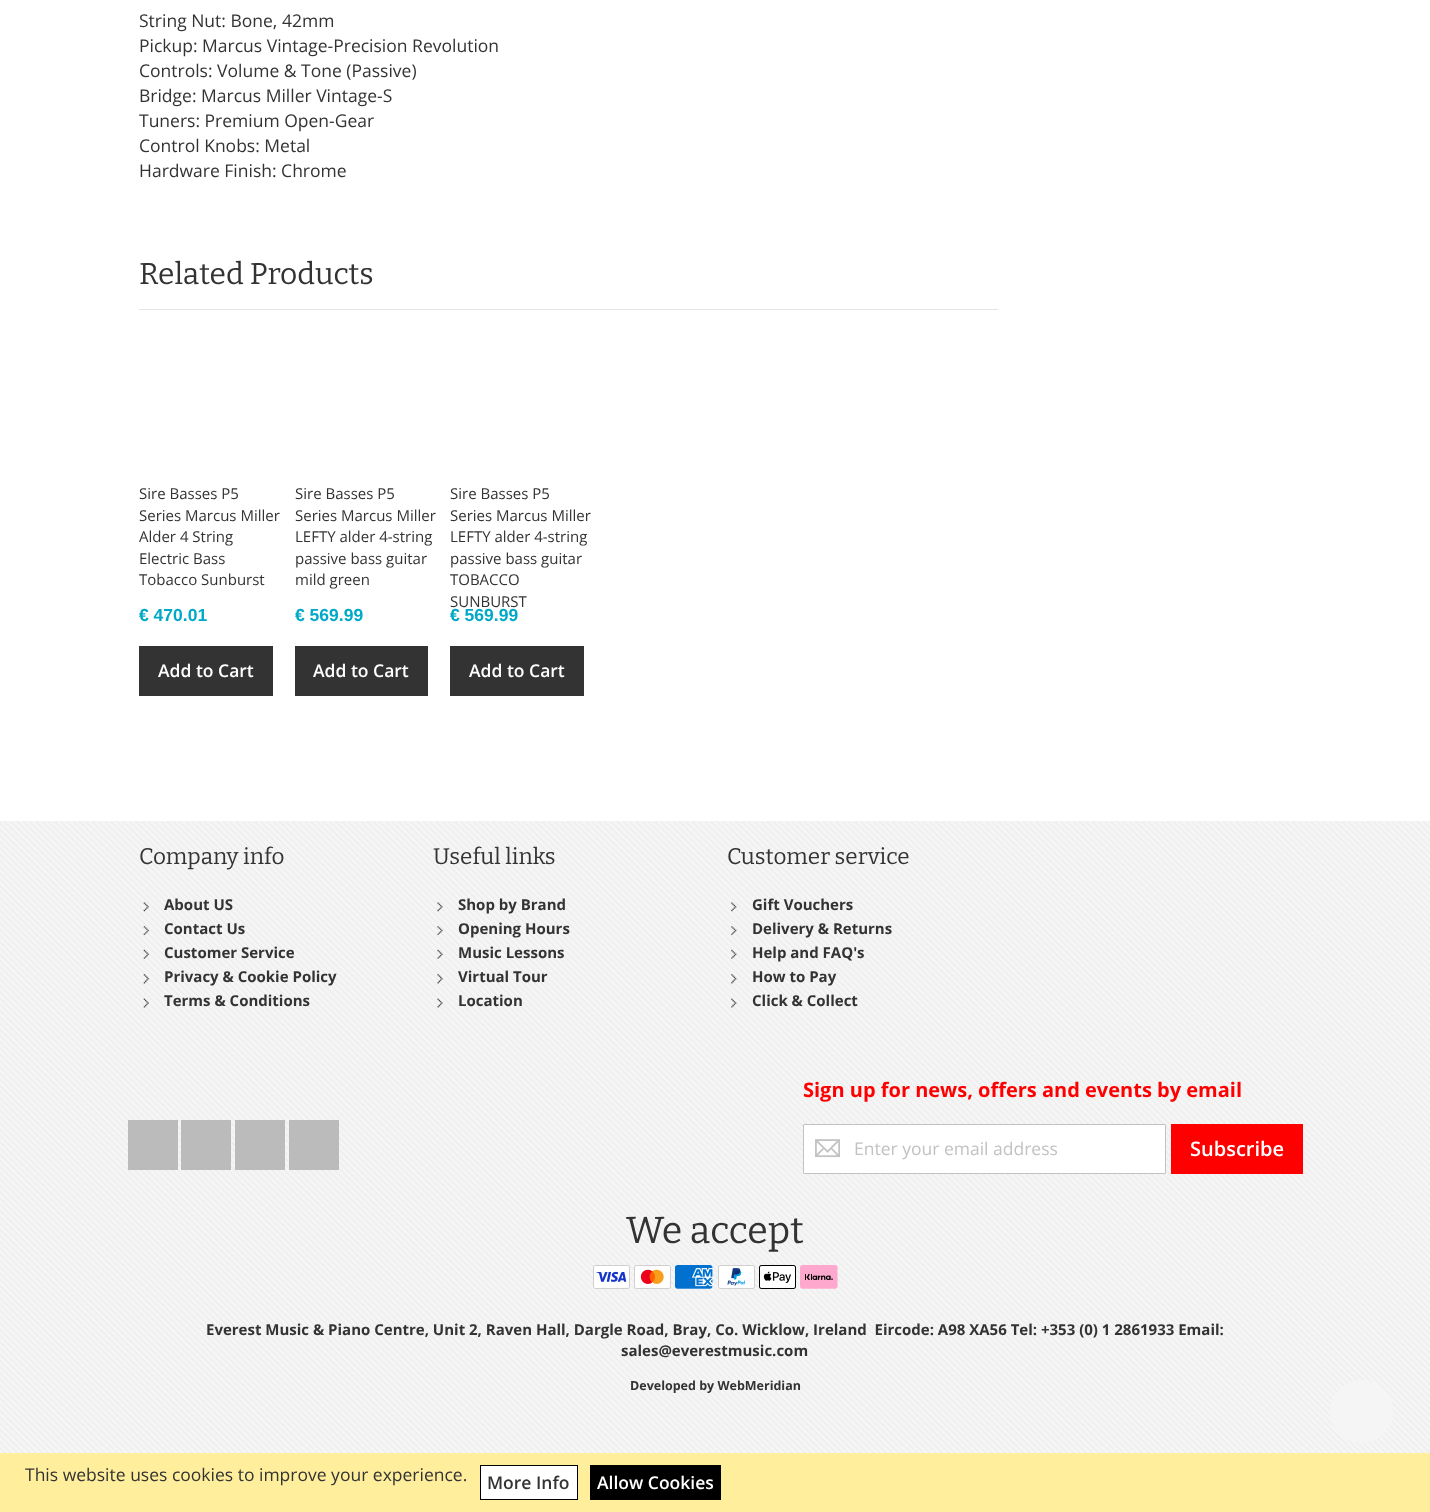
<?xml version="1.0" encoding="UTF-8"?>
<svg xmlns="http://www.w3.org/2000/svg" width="1430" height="1512">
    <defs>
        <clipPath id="clip1"><rect x="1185" y="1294" width="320" height="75"/></clipPath>
        <clipPath id="clip2"><path d="M 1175 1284 H 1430 V 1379 H 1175 Z M 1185 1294 H 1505 V 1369 H 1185 Z" clip-rule="evenodd"/></clipPath>
        <filter id="blur1" x="-50%" y="-200%" width="200%" height="500%"><feGaussianBlur stdDeviation="3"/></filter>
    </defs>
    <rect width="100%" height="100%" fill="#FFFFFF"/>
    <text font-family="Open Sans" font-size="17.5" fill="#333333">
        <tspan x="139" y="27">String Nut: Bone, 42mm</tspan>
        <tspan x="139" y="52">Pickup: Marcus Vintage-Precision Revolution</tspan>
        <tspan x="139" y="77">Controls: Volume &amp; Tone (Passive)</tspan>
        <tspan x="139" y="102">Bridge: Marcus Miller Vintage-S</tspan>
        <tspan x="139" y="127">Tuners: Premium Open-Gear</tspan>
        <tspan x="139" y="152">Control Knobs: Metal</tspan>
        <tspan x="139" y="177">Hardware Finish: Chrome</tspan>
    </text>
    <rect x="139" y="309" width="859" height="1" fill="#E5E5E5"/>
    <text x="139" y="284" font-family="Bitter" font-size="30" fill="#333333">Related Products</text>
    <text font-family="Open Sans" font-size="15" fill="#333333">
        <tspan x="139" y="499">Sire Basses P5</tspan>
        <tspan x="139" y="521">Series Marcus Miller</tspan>
        <tspan x="139" y="542">Alder 4 String</tspan>
        <tspan x="139" y="564">Electric Bass</tspan>
        <tspan x="139" y="585">Tobacco Sunburst</tspan>
    </text>
    <text x="139" y="621" font-family="Liberation Sans" font-size="17.5" font-weight="700" fill="#00A9C7">€ 470.01</text>
    <rect x="139" y="646" width="134" height="50" fill="#333333"/>
    <text x="158" y="677" font-family="Open Sans" font-size="17.5" font-weight="600" fill="#FFFFFF">Add to Cart</text>
    <text font-family="Open Sans" font-size="15" fill="#333333">
        <tspan x="295" y="499">Sire Basses P5</tspan>
        <tspan x="295" y="521">Series Marcus Miller</tspan>
        <tspan x="295" y="542">LEFTY alder 4-string</tspan>
        <tspan x="295" y="564">passive bass guitar</tspan>
        <tspan x="295" y="585">mild green</tspan>
    </text>
    <text x="295" y="621" font-family="Liberation Sans" font-size="17.5" font-weight="700" fill="#00A9C7">€ 569.99</text>
    <rect x="295" y="646" width="133" height="50" fill="#333333"/>
    <text x="313" y="677" font-family="Open Sans" font-size="17.5" font-weight="600" fill="#FFFFFF">Add to Cart</text>
    <text font-family="Open Sans" font-size="15" fill="#333333">
        <tspan x="450" y="499">Sire Basses P5</tspan>
        <tspan x="450" y="521">Series Marcus Miller</tspan>
        <tspan x="450" y="542">LEFTY alder 4-string</tspan>
        <tspan x="450" y="564">passive bass guitar</tspan>
        <tspan x="450" y="585">TOBACCO</tspan>
        <tspan x="450" y="607">SUNBURST</tspan>
    </text>
    <text x="450" y="621" font-family="Liberation Sans" font-size="17.5" font-weight="700" fill="#00A9C7">€ 569.99</text>
    <rect x="450" y="646" width="134" height="50" fill="#333333"/>
    <text x="469" y="677" font-family="Open Sans" font-size="17.5" font-weight="600" fill="#FFFFFF">Add to Cart</text>
    <rect x="0" y="821" width="1430" height="632" fill="#F5F5F5"/>
    <image x="0" y="821" width="1430" height="632" href="img_01.png"/>
    <text x="139" y="864" font-family="Bitter" font-size="22.5" fill="#333333">Company info</text>
    <image x="143" y="902" width="6" height="10" href="img_02.png"/>
    <text x="164" y="910" font-family="Open Sans" font-size="15" font-weight="700" fill="#333333">About US</text>
    <image x="143" y="926" width="6" height="9" href="img_03.png"/>
    <text x="164" y="934" font-family="Open Sans" font-size="15" font-weight="700" fill="#333333">Contact Us</text>
    <image x="143" y="949" width="6" height="10" href="img_04.png"/>
    <text x="164" y="958" font-family="Open Sans" font-size="15" font-weight="700" fill="#333333">Customer Service</text>
    <image x="143" y="974" width="6" height="10" href="img_05.png"/>
    <text x="164" y="982" font-family="Open Sans" font-size="15" font-weight="700" fill="#333333">Privacy &amp; Cookie Policy</text>
    <image x="143" y="998" width="6" height="10" href="img_06.png"/>
    <text x="164" y="1006" font-family="Open Sans" font-size="15" font-weight="700" fill="#333333">Terms &amp; Conditions</text>
    <text x="433" y="864" font-family="Bitter" font-size="22.5" fill="#333333">Useful links</text>
    <image x="437" y="902" width="6" height="10" href="img_07.png"/>
    <text x="458" y="910" font-family="Open Sans" font-size="15" font-weight="700" fill="#333333">Shop by Brand</text>
    <image x="437" y="926" width="6" height="9" href="img_08.png"/>
    <text x="458" y="934" font-family="Open Sans" font-size="15" font-weight="700" fill="#333333">Opening Hours</text>
    <image x="437" y="949" width="6" height="10" href="img_09.png"/>
    <text x="458" y="958" font-family="Open Sans" font-size="15" font-weight="700" fill="#333333">Music Lessons</text>
    <image x="437" y="974" width="6" height="10" href="img_10.png"/>
    <text x="458" y="982" font-family="Open Sans" font-size="15" font-weight="700" fill="#333333">Virtual Tour</text>
    <image x="437" y="998" width="6" height="10" href="img_11.png"/>
    <text x="458" y="1006" font-family="Open Sans" font-size="15" font-weight="700" fill="#333333">Location</text>
    <text x="727" y="864" font-family="Bitter" font-size="22.5" fill="#333333">Customer service</text>
    <image x="731" y="902" width="6" height="10" href="img_12.png"/>
    <text x="752" y="910" font-family="Open Sans" font-size="15" font-weight="700" fill="#333333">Gift Vouchers</text>
    <image x="731" y="926" width="6" height="9" href="img_13.png"/>
    <text x="752" y="934" font-family="Open Sans" font-size="15" font-weight="700" fill="#333333">Delivery &amp; Returns</text>
    <image x="731" y="949" width="6" height="10" href="img_14.png"/>
    <text x="752" y="958" font-family="Open Sans" font-size="15" font-weight="700" fill="#333333">Help and FAQ's</text>
    <image x="731" y="974" width="6" height="10" href="img_15.png"/>
    <text x="752" y="982" font-family="Open Sans" font-size="15" font-weight="700" fill="#333333">How to Pay</text>
    <image x="731" y="998" width="6" height="10" href="img_16.png"/>
    <text x="752" y="1006" font-family="Open Sans" font-size="15" font-weight="700" fill="#333333">Click &amp; Collect</text>
    <rect x="128" y="1120" width="50" height="50" fill="#BBBBBB"/>
    <rect x="181" y="1120" width="50" height="50" fill="#BBBBBB"/>
    <rect x="235" y="1120" width="50" height="50" fill="#BBBBBB"/>
    <rect x="289" y="1120" width="50" height="50" fill="#BBBBBB"/>
    <text x="803" y="1097" font-family="Open Sans" font-size="20" font-weight="700" fill="#FF0000">Sign up for news, offers and events by email</text>
    <rect x="803.5" y="1124.5" width="362" height="49" rx="0.5" fill="#FFFFFF" stroke="#C2C2C2"/>
    <image x="815" y="1139" width="25" height="19" href="img_17.png"/>
    <text x="854" y="1155" font-family="Open Sans" font-size="17.5" fill="#C2C2C2">Enter your email address</text>
    <rect x="1171" y="1124" width="132" height="50" fill="#FF0000"/>
    <text x="1190" y="1156" font-family="Open Sans" font-size="20" font-weight="600" fill="#FFFFFF">Subscribe</text>
    <g clip-path="url(#clip1)">
        <g clip-path="url(#clip2)">
            <rect x="1185" y="1294" width="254" height="75" fill="#808080" filter="url(#blur1)"/>
        </g>
    </g>
    <text x="626" y="1243" font-family="Bitter" font-size="37.5" fill="#333333">We accept</text>
    <image x="593" y="1265" width="37" height="24" href="img_18.png"/>
    <image x="634" y="1265" width="37" height="24" href="img_19.png"/>
    <image x="675" y="1265" width="38" height="24" href="img_20.png"/>
    <image x="718" y="1265" width="37" height="24" href="img_21.png"/>
    <image x="759" y="1265" width="37" height="24" href="img_22.png"/>
    <image x="800" y="1265" width="38" height="24" href="img_23.png"/>
    <text x="206" y="1335" font-family="Open Sans" font-size="15" font-weight="700" fill="#333333" xml:space="preserve">Everest Music &amp; Piano Centre, Unit 2, Raven Hall, Dargle Road, Bray, Co. Wicklow, Ireland  Eircode: A98 XA56 Tel: +353 (0) 1 2861933 Email:</text>
    <text x="621" y="1356" font-family="Open Sans" font-size="15" font-weight="700" fill="#333333">sales@everestmusic.com</text>
    <text x="630" y="1390" font-family="Open Sans" font-size="12.5" font-weight="700" fill="#333333">Developed by WebMeridian</text>
    <circle cx="1361.5" cy="1411.5" r="31.5" fill="#F5F5F5"/>
    <rect x="0" y="1453" width="1430" height="59" fill="#FFEE9C"/>
    <text x="25" y="1481" font-family="Open Sans" font-size="17.5" fill="#333333">This website uses cookies to improve your experience.</text>
    <rect x="480.5" y="1465.5" width="97" height="34" fill="#FFFFFF" stroke="#000000"/>
    <text x="487" y="1489" font-family="Open Sans" font-size="17.5" font-weight="600" fill="#333333">More Info</text>
    <rect x="590" y="1465" width="131" height="35" fill="#000000"/>
    <text x="597" y="1489" font-family="Open Sans" font-size="17.5" font-weight="600" fill="#FFFFFF">Allow Cookies</text>
</svg>
